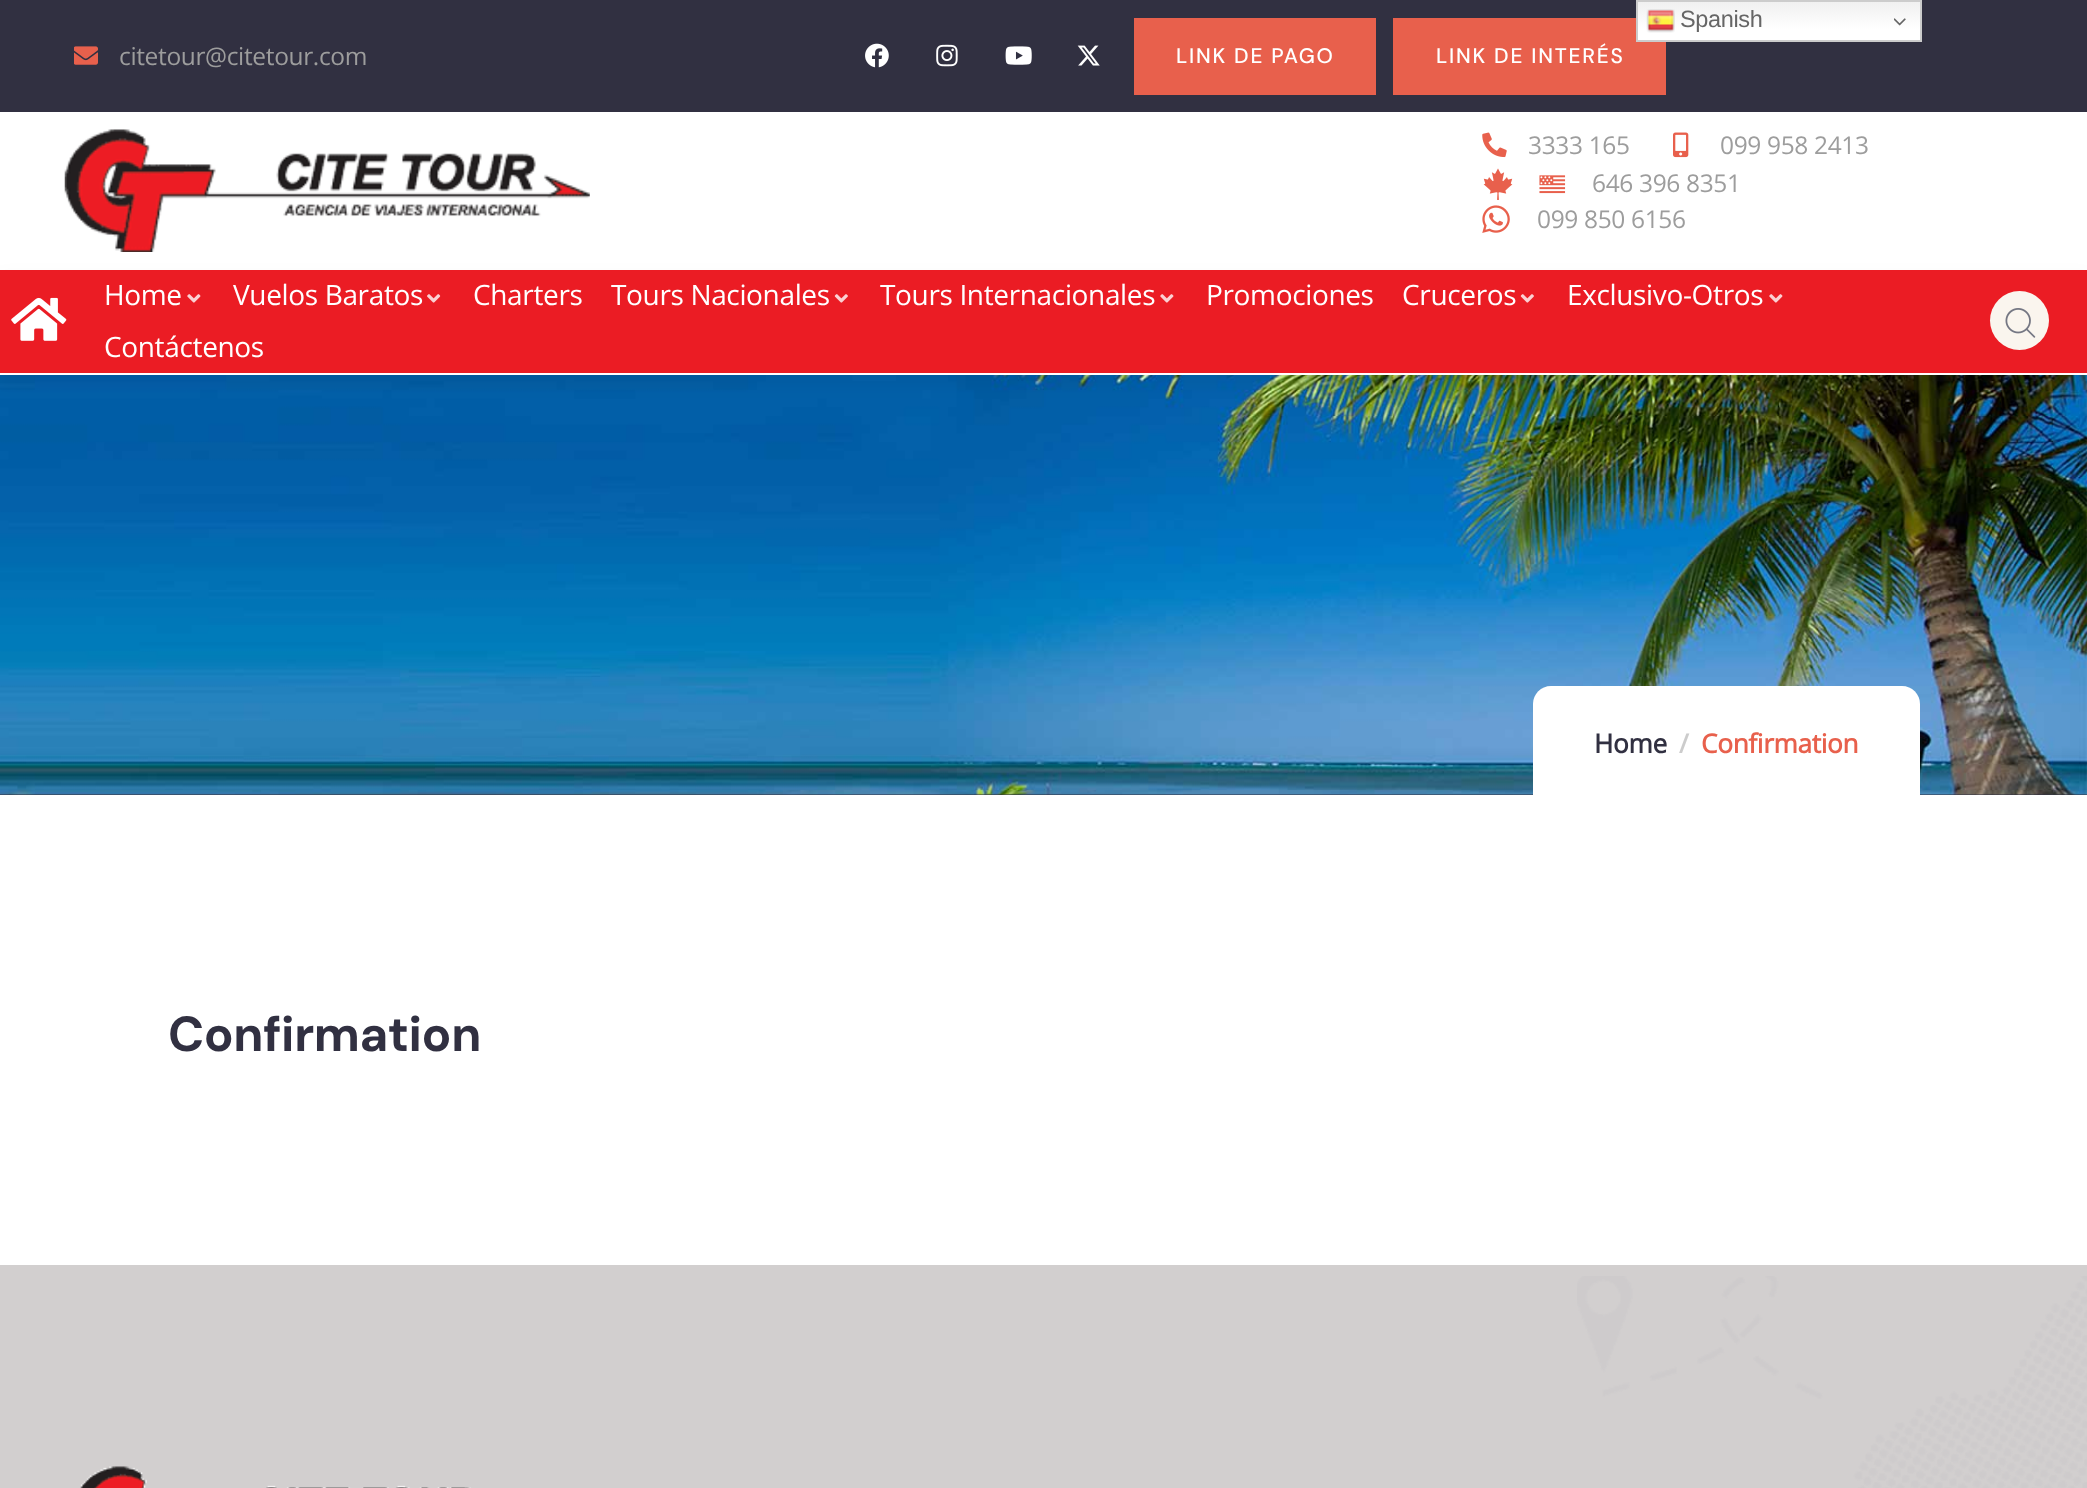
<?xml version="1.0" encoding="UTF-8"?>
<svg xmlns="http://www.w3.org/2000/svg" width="2087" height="1488">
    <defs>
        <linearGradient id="g1" gradientUnits="userSpaceOnUse" x1="1779" y1="0" x2="1779" y2="42"><stop offset="0" stop-color="#EFEFEF"/><stop offset="0.7" stop-color="#FFFFFF"/></linearGradient>
        <filter id="blur1" x="-50%" y="-200%" width="200%" height="500%"><feGaussianBlur stdDeviation="9"/></filter>
    </defs>
    <rect width="100%" height="100%" fill="#FFFFFF"/>
    <rect x="0" y="0" width="2087" height="112" fill="#313041"/>
    <rect x="1393" y="18" width="273" height="77" fill="#E8604C"/>
    <rect x="1638" y="2" width="282" height="38" fill="url(#g1)"/>
    <rect x="1637" y="1" width="284" height="40" fill="none" stroke="#CCCCCC" stroke-width="2"/>
    <image x="1646" y="9" width="29" height="24" href="img_01.png"/>
    <text x="1680" y="27" font-family="Liberation Sans" font-size="23.5" letter-spacing="-0.35" fill="#666666">Spanish</text>
    <image x="1894" y="18" width="12" height="8" href="img_02.png"/>
    <image x="74" y="46" width="24" height="19" href="img_03.png"/>
    <text x="119" y="65" font-family="Open Sans" font-size="24.5" letter-spacing="-0.35" fill="#9D9D9D">citetour@citetour.com</text>
    <image x="865" y="43" width="24" height="25" href="img_04.png"/>
    <image x="936" y="44" width="22" height="23" href="img_05.png"/>
    <image x="1005" y="46" width="27" height="19" href="img_06.png"/>
    <image x="1077" y="45" width="23" height="21" href="img_07.png"/>
    <rect x="1134" y="18" width="242" height="77" fill="#E8604C"/>
    <text x="1176" y="63" font-family="DM Sans" font-size="21" font-weight="500" letter-spacing="1.75" fill="#FFFFFF">LINK DE PAGO</text>
    <text x="1436" y="63" font-family="DM Sans" font-size="21" font-weight="500" letter-spacing="1.75" fill="#FFFFFF">LINK DE INTERÉS</text>
    <rect x="0" y="794" width="2087" height="1" fill="#313040"/>
    <image x="0" y="375" width="2087" height="420" href="img_19.png"/>
    <rect x="0" y="278" width="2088" height="105" fill="#000000" fill-opacity="0.05" filter="url(#blur1)"/>
    <image x="64" y="129" width="526" height="123" href="img_08.png"/>
    <image x="1482" y="132" width="25" height="26" href="img_09.png"/>
    <text x="1528" y="154" font-family="Open Sans" font-size="24.5" letter-spacing="-0.35" fill="#9D9D9D">3333 165</text>
    <image x="1673" y="132" width="16" height="26" href="img_10.png"/>
    <text x="1720" y="154" font-family="Open Sans" font-size="24.5" letter-spacing="-0.35" fill="#9D9D9D">099 958 2413</text>
    <image x="1483" y="168" width="30" height="32" href="img_11.png"/>
    <image x="1539" y="175" width="27" height="19" href="img_12.png"/>
    <text x="1592" y="192" font-family="Open Sans" font-size="24.5" letter-spacing="-0.35" fill="#9D9D9D">646 396 8351</text>
    <image x="1482" y="205" width="28" height="28" href="img_13.png"/>
    <text x="1537" y="228" font-family="Open Sans" font-size="24.5" letter-spacing="-0.35" fill="#9D9D9D">099 850 6156</text>
    <rect x="0" y="270" width="2087" height="103" fill="#EB1C24"/>
    <rect x="0" y="373" width="2087" height="2" fill="#FFFFFF"/>
    <image x="11" y="297" width="56" height="44" href="img_14.png"/>
    <text x="104" y="305" font-family="Open Sans" font-size="28" letter-spacing="-0.35" fill="#FFFFFF">Home</text>
    <image x="187" y="294" width="14" height="9" href="img_15.png"/>
    <text x="233" y="305" font-family="Open Sans" font-size="28" letter-spacing="-0.35" fill="#FFFFFF">Vuelos Baratos</text>
    <image x="427" y="294" width="14" height="9" href="img_16.png"/>
    <text x="473" y="305" font-family="Open Sans" font-size="28" letter-spacing="-0.35" fill="#FFFFFF">Charters</text>
    <text x="611" y="305" font-family="Open Sans" font-size="28" letter-spacing="-0.35" fill="#FFFFFF">Tours Nacionales</text>
    <image x="834" y="294" width="14" height="9" href="img_17.png"/>
    <text x="880" y="305" font-family="Open Sans" font-size="28" letter-spacing="-0.35" fill="#FFFFFF">Tours Internacionales</text>
    <image x="1160" y="294" width="14" height="9" href="img_15.png"/>
    <text x="1206" y="305" font-family="Open Sans" font-size="28" letter-spacing="-0.35" fill="#FFFFFF">Promociones</text>
    <text x="1402" y="305" font-family="Open Sans" font-size="28" letter-spacing="-0.35" fill="#FFFFFF">Cruceros</text>
    <image x="1520" y="294" width="14" height="9" href="img_17.png"/>
    <text x="1567" y="305" font-family="Open Sans" font-size="28" letter-spacing="-0.35" fill="#FFFFFF">Exclusivo-Otros</text>
    <image x="1769" y="294" width="14" height="9" href="img_15.png"/>
    <text x="104" y="357" font-family="Open Sans" font-size="28" letter-spacing="-0.35" fill="#FFFFFF">Contáctenos</text>
    <circle cx="2019.5" cy="320.5" r="29.5" fill="#FAF5EE"/>
    <image x="2005" y="308" width="31" height="30" href="img_18.png"/>
    <path d="M 1551 686 H 1902 C 1912 686 1920 694 1920 704 V 795 H 1533 V 704 C 1533 694 1541 686 1551 686 Z" fill="#FFFFFF"/>
    <text x="1594" y="753" font-family="Open Sans" font-size="26.25" font-weight="700" letter-spacing="-0.35" fill="#313041">Home</text>
    <text x="1679" y="753" font-family="Open Sans" font-size="26.25" font-weight="700" letter-spacing="-0.35" fill="#CCCCCC">/</text>
    <text x="1701" y="753" font-family="Open Sans" font-size="26.25" font-weight="700" letter-spacing="-0.35" fill="#E8604C">Confirmation</text>
    <text x="168" y="1051" font-family="DM Sans" font-size="49" font-weight="700" letter-spacing="-0.35" fill="#313041">Confirmation</text>
    <rect x="0" y="1265" width="2087" height="223" fill="#D2CFCF"/>
    <image x="1577" y="1276" width="510" height="212" href="img_20.png"/>
    <image x="80" y="1466" width="391" height="22" href="img_21.png"/>
</svg>
